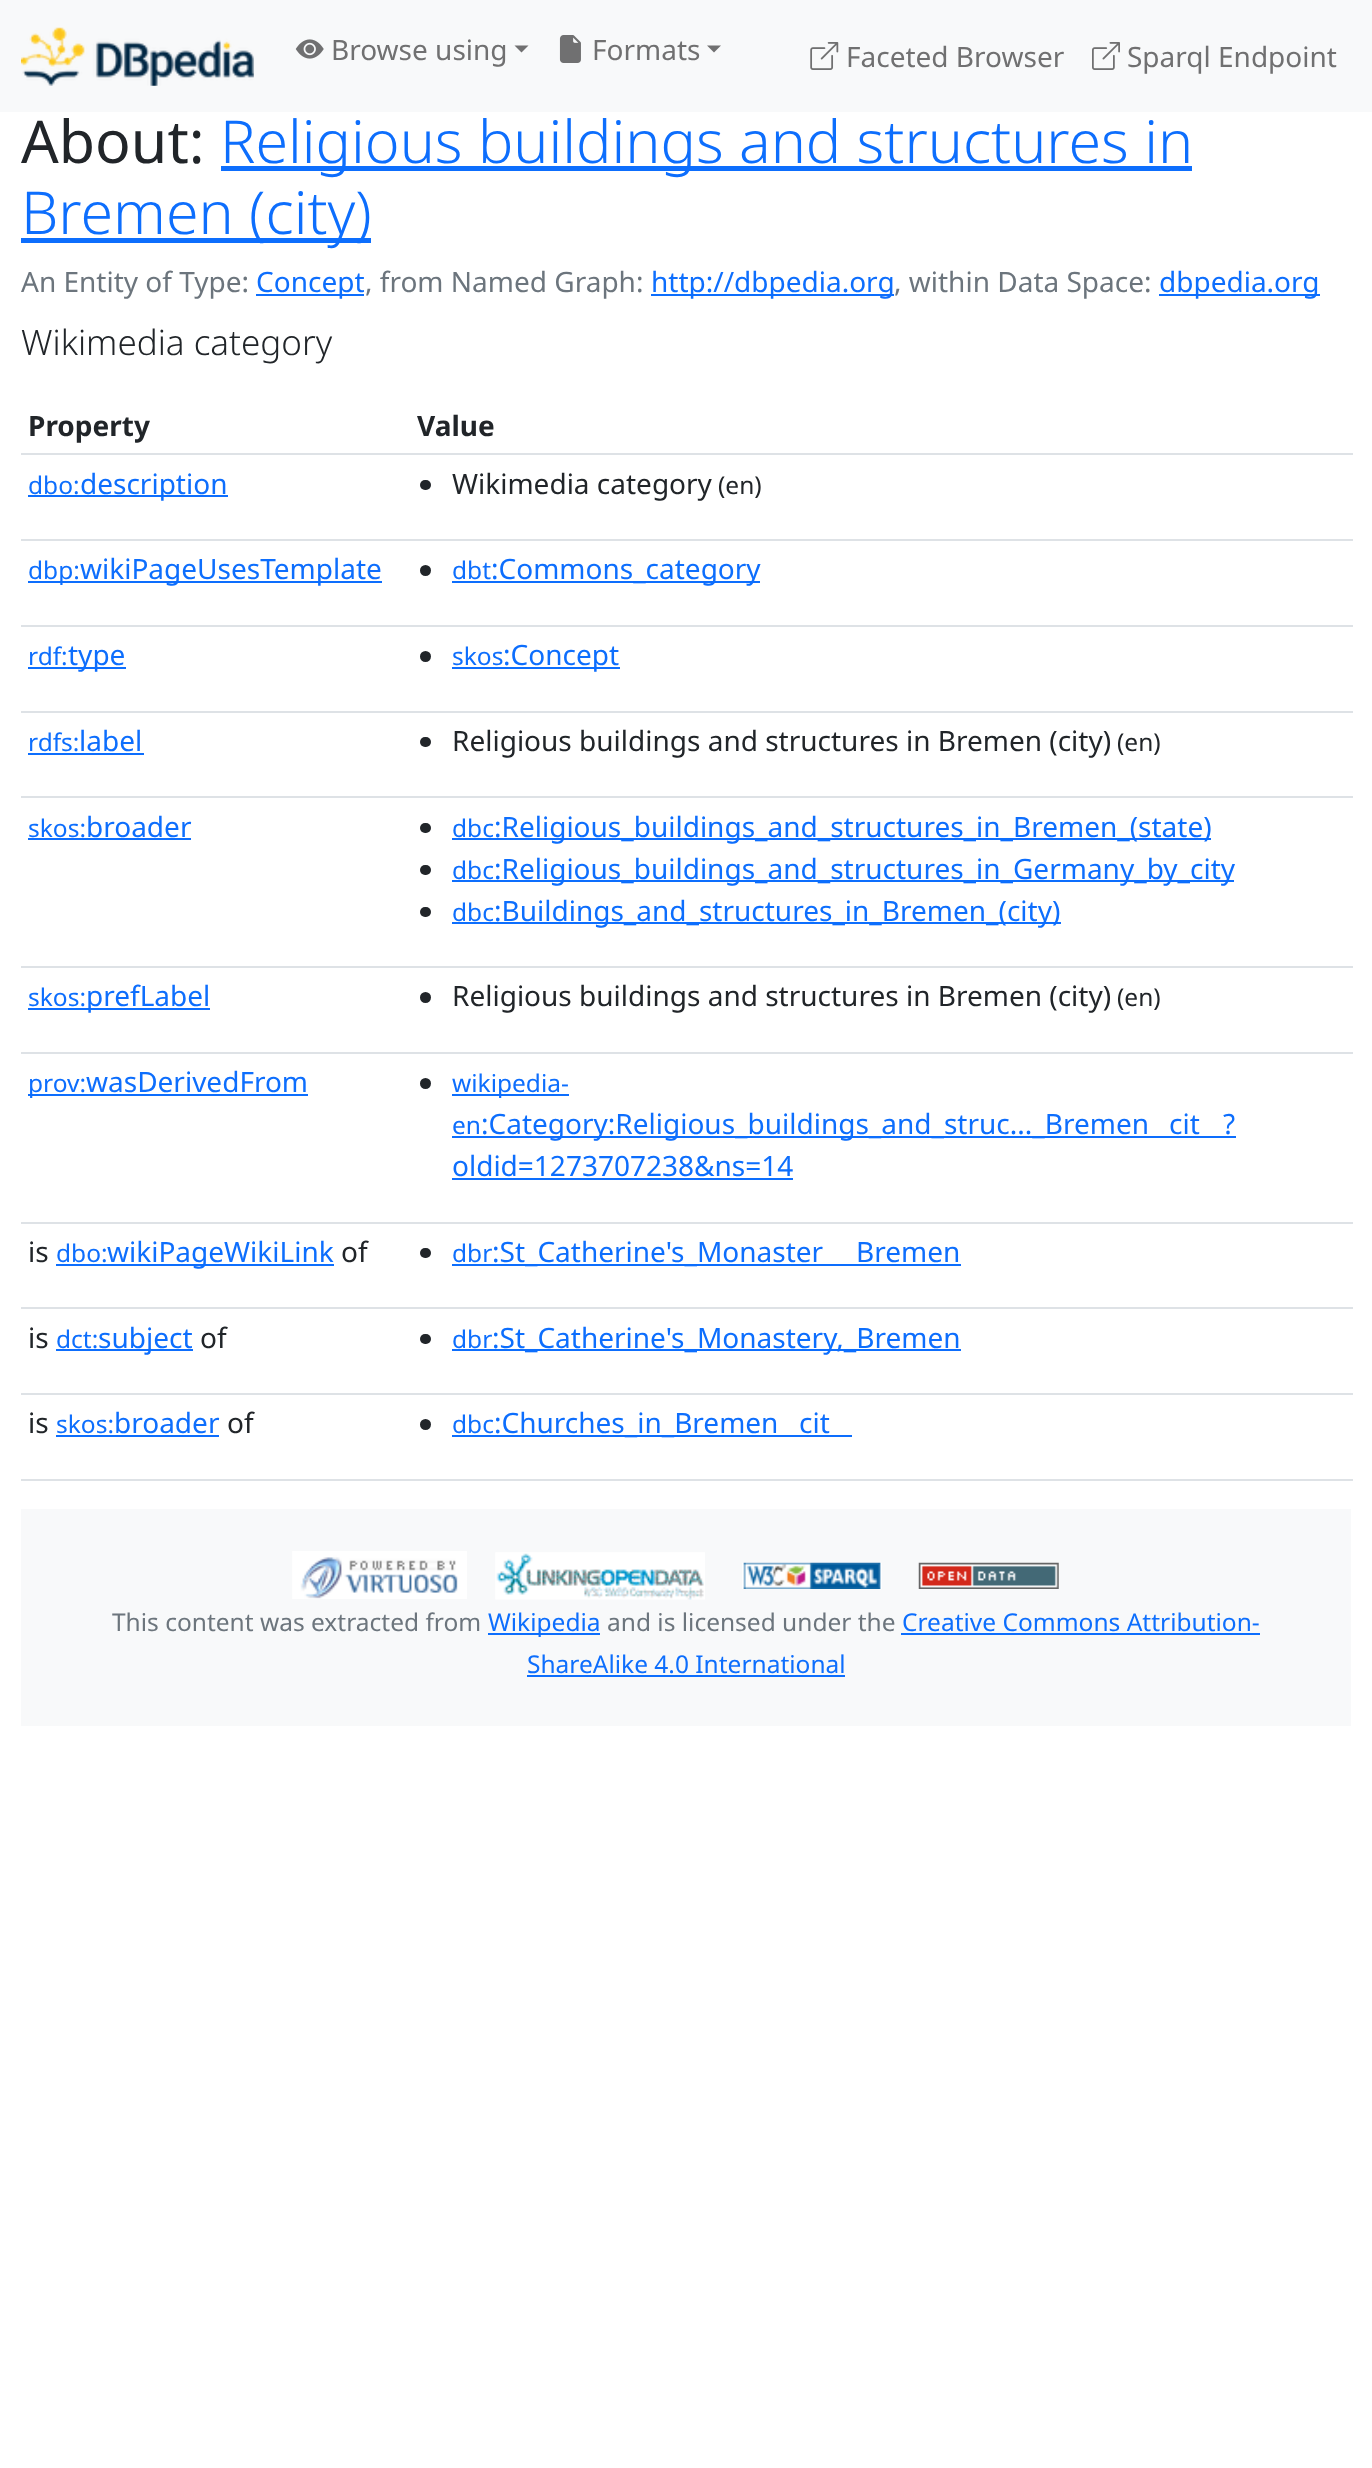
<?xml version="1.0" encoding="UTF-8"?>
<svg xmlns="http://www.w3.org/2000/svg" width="1372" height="2468">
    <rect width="100%" height="100%" fill="#FFFFFF"/>
    <rect x="0" y="0" width="1372" height="112" fill="#F8F9FA"/>
    <image x="21" y="27" width="233" height="59" href="img_01.png"/>
    <image x="295" y="39" width="29" height="20" href="img_02.png"/>
    <text x="331" y="60" font-family="Noto Sans" font-size="28" fill="#707071">Browse using</text>
    <path d="M 514.5 45.5 H 528.5 L 521.5 52.5 Z" fill="#707071"/>
    <image x="559" y="35" width="22" height="28" href="img_03.png"/>
    <text x="592" y="60" font-family="Noto Sans" font-size="28" fill="#707071">Formats</text>
    <path d="M 707 45.5 H 721 L 714 52.5 Z" fill="#707071"/>
    <image x="810" y="42" width="29" height="28" href="img_04.png"/>
    <text x="846" y="67" font-family="Noto Sans" font-size="28" fill="#707071">Faceted Browser</text>
    <image x="1092" y="42" width="28" height="28" href="img_05.png"/>
    <text x="1127" y="67" font-family="Noto Sans" font-size="28" fill="#707071">Sparql Endpoint</text>
    <text x="21" y="163" font-family="Noto Sans" font-size="59.1" fill="#212529">About:</text>
    <rect x="221" y="166" width="971" height="5" fill="#0D6EFD"/>
    <text x="220" y="163" font-family="Noto Sans" font-size="59.1" font-weight="300" fill="#0D6EFD">Religious buildings and structures in</text>
    <rect x="21" y="238" width="350" height="5" fill="#0D6EFD"/>
    <text x="21" y="234" font-family="Noto Sans" font-size="59.1" font-weight="300" fill="#0D6EFD">Bremen (city)</text>
    <text x="21" y="292" font-family="Noto Sans" font-size="28" fill="#6C757D">An Entity of Type:</text>
    <rect x="256" y="294" width="108" height="2" fill="#0D6EFD"/>
    <text x="256" y="292" font-family="Noto Sans" font-size="28" fill="#0D6EFD">Concept</text>
    <text x="365" y="292" font-family="Noto Sans" font-size="28" fill="#6C757D">, from Named Graph:</text>
    <rect x="651" y="294" width="243" height="2" fill="#0D6EFD"/>
    <text x="651" y="292" font-family="Noto Sans" font-size="28" fill="#0D6EFD">http://dbpedia.org</text>
    <text x="894" y="292" font-family="Noto Sans" font-size="28" fill="#6C757D">, within Data Space:</text>
    <rect x="1159" y="294" width="161" height="2" fill="#0D6EFD"/>
    <text x="1159" y="292" font-family="Noto Sans" font-size="28" fill="#0D6EFD">dbpedia.org</text>
    <text x="21" y="355" font-family="Noto Sans" font-size="35" font-weight="300" fill="#212529">Wikimedia category</text>
    <text x="28" y="436" font-family="Noto Sans" font-size="28" font-weight="700" fill="#212529">Property</text>
    <rect x="21" y="453" width="1332" height="2" fill="#DEE2E6"/>
    <text x="417" y="436" font-family="Noto Sans" font-size="28" font-weight="700" fill="#212529">Value</text>
    <text x="28" y="494" font-family="Noto Sans" font-size="24.5" fill="#0D6EFD">dbo:</text>
    <rect x="28" y="495" width="200" height="2" fill="#0D6EFD"/>
    <text x="80" y="494" font-family="Noto Sans" font-size="28" fill="#0D6EFD">description</text>
    <rect x="21" y="539" width="1332" height="2" fill="#DEE2E6"/>
    <rect x="420" y="480" width="11" height="10" rx="5" fill="#212529"/>
    <text x="452" y="494" font-family="Noto Sans" font-size="28" fill="#212529">Wikimedia category</text>
    <text x="718" y="494" font-family="Noto Sans" font-size="24.5" fill="#212529">(en)</text>
    <rect x="28" y="581" width="354" height="2" fill="#0D6EFD"/>
    <text x="28" y="579" font-family="Noto Sans" font-size="24.5" fill="#0D6EFD">dbp:</text>
    <text x="80" y="579" font-family="Noto Sans" font-size="28" fill="#0D6EFD">wikiPageUsesTemplate</text>
    <rect x="21" y="625" width="1332" height="2" fill="#DEE2E6"/>
    <circle cx="425.5" cy="570.5" r="5.5" fill="#212529"/>
    <text x="452" y="579" font-family="Noto Sans" font-size="24.5" fill="#0D6EFD">dbt</text>
    <rect x="452" y="581" width="308" height="2" fill="#0D6EFD"/>
    <text x="491" y="579" font-family="Noto Sans" font-size="28" fill="#0D6EFD">:Commons_category</text>
    <text x="28" y="665" font-family="Noto Sans" font-size="24.5" fill="#0D6EFD">rdf:</text>
    <rect x="28" y="667" width="98" height="2" fill="#0D6EFD"/>
    <text x="68" y="665" font-family="Noto Sans" font-size="28" fill="#0D6EFD">type</text>
    <rect x="21" y="711" width="1332" height="2" fill="#DEE2E6"/>
    <circle cx="425.5" cy="656.5" r="5.5" fill="#212529"/>
    <text x="452" y="665" font-family="Noto Sans" font-size="24.5" fill="#0D6EFD">skos</text>
    <rect x="452" y="667" width="168" height="2" fill="#0D6EFD"/>
    <text x="503" y="665" font-family="Noto Sans" font-size="28" fill="#0D6EFD">:Concept</text>
    <text x="28" y="751" font-family="Noto Sans" font-size="24.5" fill="#0D6EFD">rdfs:</text>
    <rect x="28" y="753" width="116" height="2" fill="#0D6EFD"/>
    <text x="79" y="751" font-family="Noto Sans" font-size="28" fill="#0D6EFD">label</text>
    <rect x="21" y="796" width="1332" height="2" fill="#DEE2E6"/>
    <rect x="420" y="737" width="11" height="10" rx="5" fill="#212529"/>
    <text x="452" y="751" font-family="Noto Sans" font-size="28" fill="#212529">Religious buildings and structures in Bremen (city)</text>
    <text x="1117" y="751" font-family="Noto Sans" font-size="24.5" fill="#212529">(en)</text>
    <text x="28" y="837" font-family="Noto Sans" font-size="24.5" fill="#0D6EFD">skos:</text>
    <rect x="28" y="838" width="163" height="2" fill="#0D6EFD"/>
    <text x="86" y="837" font-family="Noto Sans" font-size="28" fill="#0D6EFD">broader</text>
    <rect x="21" y="966" width="1332" height="2" fill="#DEE2E6"/>
    <rect x="420" y="823" width="11" height="10" rx="5" fill="#212529"/>
    <text x="452" y="837" font-family="Noto Sans" font-size="24.5" fill="#0D6EFD">dbc</text>
    <rect x="452" y="838" width="759" height="2" fill="#0D6EFD"/>
    <text x="494" y="837" font-family="Noto Sans" font-size="28" fill="#0D6EFD">:Religious_buildings_and_structures_in_Bremen_(state)</text>
    <rect x="420" y="865" width="11" height="10" rx="5" fill="#212529"/>
    <text x="452" y="879" font-family="Noto Sans" font-size="24.5" fill="#0D6EFD">dbc</text>
    <rect x="452" y="880" width="782" height="2" fill="#0D6EFD"/>
    <text x="494" y="879" font-family="Noto Sans" font-size="28" fill="#0D6EFD">:Religious_buildings_and_structures_in_Germany_by_city</text>
    <rect x="420" y="907" width="11" height="10" rx="5" fill="#212529"/>
    <text x="452" y="921" font-family="Noto Sans" font-size="24.5" fill="#0D6EFD">dbc</text>
    <rect x="452" y="922" width="609" height="2" fill="#0D6EFD"/>
    <text x="494" y="921" font-family="Noto Sans" font-size="28" fill="#0D6EFD">:Buildings_and_structures_in_Bremen_(city)</text>
    <text x="28" y="1006" font-family="Noto Sans" font-size="24.5" fill="#0D6EFD">skos:</text>
    <rect x="28" y="1008" width="182" height="2" fill="#0D6EFD"/>
    <text x="86" y="1006" font-family="Noto Sans" font-size="28" fill="#0D6EFD">prefLabel</text>
    <rect x="21" y="1052" width="1332" height="2" fill="#DEE2E6"/>
    <circle cx="425.5" cy="997.5" r="5.5" fill="#212529"/>
    <text x="452" y="1006" font-family="Noto Sans" font-size="28" fill="#212529">Religious buildings and structures in Bremen (city)</text>
    <text x="1117" y="1006" font-family="Noto Sans" font-size="24.5" fill="#212529">(en)</text>
    <rect x="28" y="1094" width="280" height="2" fill="#0D6EFD"/>
    <text x="28" y="1092" font-family="Noto Sans" font-size="24.5" fill="#0D6EFD">prov:</text>
    <text x="86" y="1092" font-family="Noto Sans" font-size="28" fill="#0D6EFD">wasDerivedFrom</text>
    <rect x="21" y="1222" width="1332" height="2" fill="#DEE2E6"/>
    <circle cx="425.5" cy="1083.5" r="5.5" fill="#212529"/>
    <rect x="452" y="1094" width="117" height="2" fill="#0D6EFD"/>
    <text font-family="Noto Sans" font-size="24.5" fill="#0D6EFD">
        <tspan x="452" y="1092">wikipedia-</tspan>
        <tspan x="452" y="1134">en</tspan>
    </text>
    <rect x="452" y="1136" width="784" height="2" fill="#0D6EFD"/>
    <text x="481" y="1134" font-family="Noto Sans" font-size="28" fill="#0D6EFD">:Category:Religious_buildings_and_struc..._Bremen</text>
    <text x="1169" y="1134" font-family="Noto Sans" font-size="28" fill="#0D6EFD">cit</text>
    <text x="1223" y="1134" font-family="Noto Sans" font-size="28" fill="#0D6EFD">?</text>
    <text x="452" y="1176" font-family="Noto Sans" font-size="28" fill="#0D6EFD">oldid=1273707238&amp;ns=14</text>
    <rect x="452" y="1178" width="341" height="2" fill="#0D6EFD"/>
    <text x="28" y="1262" font-family="Noto Sans" font-size="28" fill="#212529">is</text>
    <text x="56" y="1262" font-family="Noto Sans" font-size="24.5" fill="#0D6EFD">dbo:</text>
    <rect x="56" y="1264" width="278" height="2" fill="#0D6EFD"/>
    <text x="107" y="1262" font-family="Noto Sans" font-size="28" fill="#0D6EFD">wikiPageWikiLink</text>
    <text x="341" y="1262" font-family="Noto Sans" font-size="28" fill="#212529">of</text>
    <rect x="21" y="1307" width="1332" height="2" fill="#DEE2E6"/>
    <rect x="420" y="1248" width="11" height="10" rx="5" fill="#212529"/>
    <text x="452" y="1262" font-family="Noto Sans" font-size="24.5" fill="#0D6EFD">dbr</text>
    <rect x="452" y="1264" width="509" height="2" fill="#0D6EFD"/>
    <text x="492" y="1262" font-family="Noto Sans" font-size="28" fill="#0D6EFD">:St_Catherine's_Monaster</text>
    <text x="856" y="1262" font-family="Noto Sans" font-size="28" fill="#0D6EFD">Bremen</text>
    <text x="28" y="1348" font-family="Noto Sans" font-size="28" fill="#212529">is</text>
    <text x="56" y="1348" font-family="Noto Sans" font-size="24.5" fill="#0D6EFD">dct:</text>
    <rect x="56" y="1349" width="137" height="2" fill="#0D6EFD"/>
    <text x="98" y="1348" font-family="Noto Sans" font-size="28" fill="#0D6EFD">subject</text>
    <text x="200" y="1348" font-family="Noto Sans" font-size="28" fill="#212529">of</text>
    <rect x="21" y="1393" width="1332" height="2" fill="#DEE2E6"/>
    <rect x="420" y="1334" width="11" height="10" rx="5" fill="#212529"/>
    <text x="452" y="1348" font-family="Noto Sans" font-size="24.5" fill="#0D6EFD">dbr</text>
    <rect x="452" y="1349" width="509" height="2" fill="#0D6EFD"/>
    <text x="492" y="1348" font-family="Noto Sans" font-size="28" fill="#0D6EFD">:St_Catherine's_Monastery,_Bremen</text>
    <text x="28" y="1433" font-family="Noto Sans" font-size="28" fill="#212529">is</text>
    <text x="56" y="1433" font-family="Noto Sans" font-size="24.5" fill="#0D6EFD">skos:</text>
    <rect x="56" y="1435" width="163" height="2" fill="#0D6EFD"/>
    <text x="114" y="1433" font-family="Noto Sans" font-size="28" fill="#0D6EFD">broader</text>
    <text x="227" y="1433" font-family="Noto Sans" font-size="28" fill="#212529">of</text>
    <rect x="21" y="1479" width="1332" height="2" fill="#DEE2E6"/>
    <circle cx="425.5" cy="1424.5" r="5.5" fill="#212529"/>
    <text x="452" y="1433" font-family="Noto Sans" font-size="24.5" fill="#0D6EFD">dbc</text>
    <rect x="452" y="1435" width="400" height="2" fill="#0D6EFD"/>
    <text x="494" y="1433" font-family="Noto Sans" font-size="28" fill="#0D6EFD">:Churches_in_Bremen</text>
    <text x="799" y="1433" font-family="Noto Sans" font-size="28" fill="#0D6EFD">cit</text>
    <rect x="21" y="1509" width="1330" height="217" fill="#F8F9FA"/>
    <image x="292" y="1551" width="175" height="48" href="img_06.png"/>
    <image x="495" y="1552" width="210" height="48" href="img_07.png"/>
    <image x="742" y="1562" width="140" height="27" href="img_08.png"/>
    <image x="918" y="1562" width="141" height="27" href="img_09.png"/>
    <text x="112" y="1631" font-family="Noto Sans" font-size="24.5" fill="#6C757D">This content was extracted from</text>
    <rect x="488" y="1633" width="112" height="2" fill="#0D6EFD"/>
    <text x="488" y="1631" font-family="Noto Sans" font-size="24.5" fill="#0D6EFD">Wikipedia</text>
    <text x="607" y="1631" font-family="Noto Sans" font-size="24.5" fill="#6C757D">and is licensed under the</text>
    <text x="902" y="1631" font-family="Noto Sans" font-size="24.5" fill="#0D6EFD">Creative Commons Attribution-</text>
    <rect x="901" y="1633" width="359" height="2" fill="#0D6EFD"/>
    <text x="527" y="1673" font-family="Noto Sans" font-size="24.5" fill="#0D6EFD">ShareAlike 4.0 International</text>
    <rect x="527" y="1675" width="318" height="2" fill="#0D6EFD"/>
</svg>
